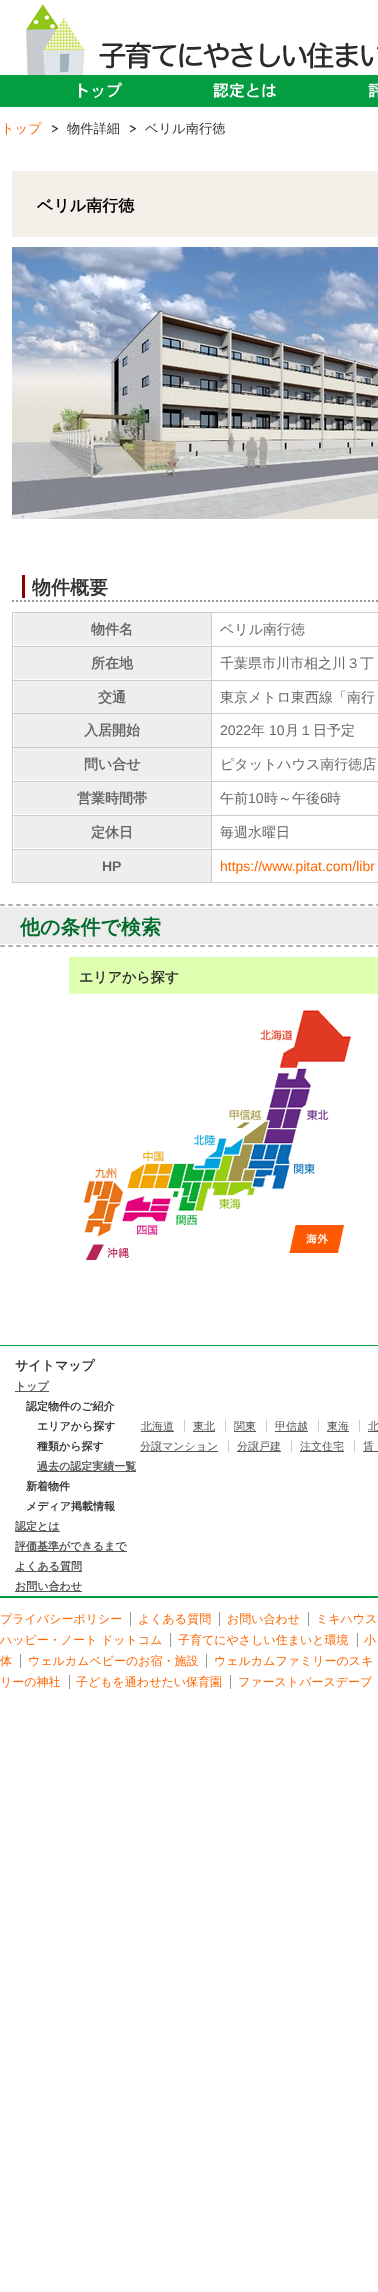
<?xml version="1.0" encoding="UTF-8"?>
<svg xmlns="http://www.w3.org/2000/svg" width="378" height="2292">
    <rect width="100%" height="100%" fill="#FFFFFF"/>
    <image x="26" y="4" width="352" height="71" href="img_01.png"/>
    <rect x="0" y="75" width="378" height="32" fill="#039E41"/>
    <image x="79" y="82" width="43" height="17" href="img_02.png"/>
    <image x="213" y="83" width="63" height="15" href="img_03.png"/>
    <image x="368" y="83" width="10" height="15" href="img_04.png"/>
    <text x="1" y="133" font-family="WenQuanYi Zen Hei" font-size="13.25" font-weight="500" fill="#FF6600">トップ</text>
    <image x="52" y="125" width="7" height="8" href="img_05.png"/>
    <text x="67" y="133" font-family="WenQuanYi Zen Hei" font-size="13.25" font-weight="500" fill="#333333">物件詳細</text>
    <image x="130" y="125" width="7" height="8" href="img_05.png"/>
    <text x="145" y="133" font-family="WenQuanYi Zen Hei" font-size="13.25" font-weight="500" fill="#333333">ベリル南行徳</text>
    <rect x="12" y="171" width="366" height="66" fill="#F4EFE9"/>
    <text x="37" y="211" font-family="WenQuanYi Zen Hei" font-size="16" font-weight="700" fill="#000000">ベリル南行徳</text>
    <image x="12" y="247" width="366" height="272" href="img_06.png"/>
    <path d="M 12 601 H 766" fill="none" stroke="#999999" stroke-width="2" stroke-dasharray="2 2"/>
    <rect x="22" y="575" width="3" height="23" fill="#880101"/>
    <text x="32" y="594" font-family="WenQuanYi Zen Hei" font-size="19" font-weight="700" fill="#333333">物件概要</text>
    <rect x="12" y="612" width="366" height="1" fill="#CCCCCC"/>
    <rect x="12" y="882" width="366" height="1" fill="#CCCCCC"/>
    <rect x="12" y="612" width="1" height="271" fill="#CCCCCC"/>
    <rect x="14" y="613" width="197" height="32" fill="#EEEEEE"/>
    <rect x="211" y="849" width="1" height="34" fill="#CCCCCC"/>
    <rect x="211" y="849" width="167" height="1" fill="#CCCCCC"/>
    <rect x="211" y="815" width="1" height="35" fill="#CCCCCC"/>
    <rect x="211" y="815" width="167" height="1" fill="#CCCCCC"/>
    <rect x="211" y="781" width="1" height="35" fill="#CCCCCC"/>
    <rect x="211" y="781" width="167" height="1" fill="#CCCCCC"/>
    <rect x="211" y="747" width="1" height="35" fill="#CCCCCC"/>
    <rect x="211" y="747" width="167" height="1" fill="#CCCCCC"/>
    <rect x="211" y="713" width="1" height="35" fill="#CCCCCC"/>
    <rect x="211" y="713" width="167" height="1" fill="#CCCCCC"/>
    <rect x="211" y="680" width="1" height="34" fill="#CCCCCC"/>
    <rect x="211" y="680" width="167" height="1" fill="#CCCCCC"/>
    <rect x="211" y="646" width="1" height="35" fill="#CCCCCC"/>
    <rect x="211" y="646" width="167" height="1" fill="#CCCCCC"/>
    <rect x="211" y="612" width="1" height="35" fill="#CCCCCC"/>
    <rect x="12" y="646" width="200" height="1" fill="#CCCCCC"/>
    <text x="91" y="634" font-family="WenQuanYi Zen Hei" font-size="14" font-weight="700" fill="#666666">物件名</text>
    <text x="220" y="634" font-family="WenQuanYi Zen Hei" font-size="14" font-weight="500" fill="#666666">ベリル南行徳</text>
    <rect x="14" y="647" width="197" height="32" fill="#EEEEEE"/>
    <rect x="12" y="680" width="200" height="1" fill="#CCCCCC"/>
    <text x="91" y="668" font-family="WenQuanYi Zen Hei" font-size="14" font-weight="700" fill="#666666">所在地</text>
    <text x="220" y="668" font-family="WenQuanYi Zen Hei" font-size="14" font-weight="500" fill="#666666">千葉県市川市相之川３丁</text>
    <rect x="14" y="681" width="197" height="32" fill="#EEEEEE"/>
    <rect x="12" y="713" width="200" height="1" fill="#CCCCCC"/>
    <text x="98" y="702" font-family="WenQuanYi Zen Hei" font-size="14" font-weight="700" fill="#666666">交通</text>
    <text x="220" y="702" font-family="WenQuanYi Zen Hei" font-size="14" font-weight="500" fill="#666666">東京メトロ東西線「南行</text>
    <rect x="14" y="714" width="197" height="33" fill="#EEEEEE"/>
    <rect x="12" y="747" width="200" height="1" fill="#CCCCCC"/>
    <text x="84" y="735" font-family="WenQuanYi Zen Hei" font-size="14" font-weight="700" fill="#666666">入居開始</text>
    <text x="220" y="735" font-family="Liberation Sans" font-size="14" fill="#666666">2022</text>
    <text x="251" y="735" font-family="WenQuanYi Zen Hei" font-size="14" font-weight="500" fill="#666666">年</text>
    <text x="269" y="735" font-family="Liberation Sans" font-size="14" fill="#666666">10</text>
    <text x="285" y="735" font-family="WenQuanYi Zen Hei" font-size="14" font-weight="500" fill="#666666">月１日予定</text>
    <rect x="14" y="748" width="197" height="32" fill="#EEEEEE"/>
    <rect x="12" y="781" width="200" height="1" fill="#CCCCCC"/>
    <text x="84" y="769" font-family="WenQuanYi Zen Hei" font-size="14" font-weight="700" fill="#666666">問い合せ</text>
    <text x="220" y="769" font-family="WenQuanYi Zen Hei" font-size="14" font-weight="500" fill="#666666">ピタットハウス南行徳店</text>
    <rect x="14" y="782" width="197" height="32" fill="#EEEEEE"/>
    <rect x="12" y="815" width="200" height="1" fill="#CCCCCC"/>
    <text x="77" y="803" font-family="WenQuanYi Zen Hei" font-size="14" font-weight="700" fill="#666666">営業時間帯</text>
    <text x="220" y="803" font-family="WenQuanYi Zen Hei" font-size="14" font-weight="500" fill="#666666">午前</text>
    <text x="248" y="803" font-family="Liberation Sans" font-size="14" fill="#666666">10</text>
    <text x="264" y="803" font-family="WenQuanYi Zen Hei" font-size="14" font-weight="500" fill="#666666">時～午後</text>
    <text x="320" y="803" font-family="Liberation Sans" font-size="14" fill="#666666">6</text>
    <text x="327" y="803" font-family="WenQuanYi Zen Hei" font-size="14" font-weight="500" fill="#666666">時</text>
    <rect x="14" y="816" width="197" height="32" fill="#EEEEEE"/>
    <rect x="12" y="849" width="200" height="1" fill="#CCCCCC"/>
    <text x="91" y="837" font-family="WenQuanYi Zen Hei" font-size="14" font-weight="700" fill="#666666">定休日</text>
    <text x="220" y="837" font-family="WenQuanYi Zen Hei" font-size="14" font-weight="500" fill="#666666">毎週水曜日</text>
    <rect x="14" y="850" width="197" height="32" fill="#EEEEEE"/>
    <text x="102" y="871" font-family="Liberation Sans" font-size="14" font-weight="700" fill="#666666">HP</text>
    <text x="220" y="871" font-family="Liberation Sans" font-size="14" fill="#FF6600">https://www.pitat.com/libr</text>
    <image x="0" y="904" width="378" height="43" href="img_07.png"/>
    <text x="20" y="934" font-family="WenQuanYi Zen Hei" font-size="20" font-weight="700" fill="#016C2C">他の条件で検索</text>
    <rect x="69" y="957" width="309" height="37" fill="#DEFFB0"/>
    <text x="79" y="982" font-family="WenQuanYi Zen Hei" font-size="14" font-weight="700" fill="#333333">エリアから探す</text>
    <image x="84" y="1010" width="267" height="250" href="img_08.png"/>
    <rect x="0" y="1345" width="378" height="1" fill="#039E41"/>
    <rect x="0" y="1596" width="378" height="2" fill="#039E41"/>
    <text x="15" y="1370" font-family="WenQuanYi Zen Hei" font-size="13" font-weight="700" fill="#333333">サイトマップ</text>
    <rect x="15" y="1391" width="34" height="1" fill="#555555"/>
    <text x="15" y="1390" font-family="WenQuanYi Zen Hei" font-size="11" font-weight="700" fill="#555555">トップ</text>
    <text x="26" y="1410" font-family="WenQuanYi Zen Hei" font-size="11" font-weight="700" fill="#333333">認定物件のご紹介</text>
    <text x="37" y="1430" font-family="WenQuanYi Zen Hei" font-size="11" font-weight="700" fill="#333333">エリアから探す</text>
    <rect x="141" y="1431" width="33" height="1" fill="#555555"/>
    <text x="141" y="1430" font-family="WenQuanYi Zen Hei" font-size="11" font-weight="500" fill="#555555">北海道</text>
    <rect x="193" y="1431" width="22" height="1" fill="#555555"/>
    <text x="193" y="1430" font-family="WenQuanYi Zen Hei" font-size="11" font-weight="500" fill="#555555">東北</text>
    <rect x="184" y="1420" width="1" height="12" fill="#CCCCCC"/>
    <rect x="234" y="1431" width="22" height="1" fill="#555555"/>
    <text x="234" y="1430" font-family="WenQuanYi Zen Hei" font-size="11" font-weight="500" fill="#555555">関東</text>
    <rect x="225" y="1420" width="1" height="12" fill="#CCCCCC"/>
    <rect x="275" y="1431" width="33" height="1" fill="#555555"/>
    <text x="275" y="1430" font-family="WenQuanYi Zen Hei" font-size="11" font-weight="500" fill="#555555">甲信越</text>
    <rect x="266" y="1420" width="1" height="12" fill="#CCCCCC"/>
    <rect x="327" y="1431" width="22" height="1" fill="#555555"/>
    <text x="327" y="1430" font-family="WenQuanYi Zen Hei" font-size="11" font-weight="500" fill="#555555">東海</text>
    <rect x="318" y="1420" width="1" height="12" fill="#CCCCCC"/>
    <rect x="368" y="1431" width="10" height="1" fill="#555555"/>
    <text x="368" y="1430" font-family="WenQuanYi Zen Hei" font-size="11" font-weight="500" fill="#555555">北</text>
    <rect x="359" y="1420" width="1" height="12" fill="#CCCCCC"/>
    <text x="37" y="1450" font-family="WenQuanYi Zen Hei" font-size="11" font-weight="700" fill="#333333">種類から探す</text>
    <rect x="140" y="1451" width="78" height="1" fill="#555555"/>
    <text x="140" y="1450" font-family="WenQuanYi Zen Hei" font-size="11" font-weight="500" fill="#555555">分譲マンション</text>
    <rect x="237" y="1451" width="44" height="1" fill="#555555"/>
    <text x="237" y="1450" font-family="WenQuanYi Zen Hei" font-size="11" font-weight="500" fill="#555555">分譲戸建</text>
    <rect x="228" y="1440" width="1" height="12" fill="#CCCCCC"/>
    <rect x="300" y="1451" width="44" height="1" fill="#555555"/>
    <text x="300" y="1450" font-family="WenQuanYi Zen Hei" font-size="11" font-weight="500" fill="#555555">注文住宅</text>
    <rect x="291" y="1440" width="1" height="12" fill="#CCCCCC"/>
    <rect x="363" y="1451" width="15" height="1" fill="#555555"/>
    <text x="363" y="1450" font-family="WenQuanYi Zen Hei" font-size="11" font-weight="500" fill="#555555">賃</text>
    <rect x="354" y="1440" width="1" height="12" fill="#CCCCCC"/>
    <rect x="37" y="1471" width="99" height="1" fill="#555555"/>
    <text x="37" y="1470" font-family="WenQuanYi Zen Hei" font-size="11" font-weight="700" fill="#555555">過去の認定実績一覧</text>
    <text font-family="WenQuanYi Zen Hei" font-size="11" font-weight="700" fill="#333333">
        <tspan x="26" y="1490">新着物件</tspan>
        <tspan x="26" y="1510">メディア掲載情報</tspan>
    </text>
    <rect x="15" y="1531" width="45" height="1" fill="#555555"/>
    <text x="15" y="1530" font-family="WenQuanYi Zen Hei" font-size="11" font-weight="700" fill="#555555">認定とは</text>
    <rect x="15" y="1551" width="112" height="1" fill="#555555"/>
    <text x="15" y="1550" font-family="WenQuanYi Zen Hei" font-size="11" font-weight="700" fill="#555555">評価基準ができるまで</text>
    <rect x="15" y="1571" width="67" height="1" fill="#555555"/>
    <text x="15" y="1570" font-family="WenQuanYi Zen Hei" font-size="11" font-weight="700" fill="#555555">よくある質問</text>
    <rect x="15" y="1591" width="67" height="1" fill="#555555"/>
    <text x="15" y="1590" font-family="WenQuanYi Zen Hei" font-size="11" font-weight="700" fill="#555555">お問い合わせ</text>
    <text x="0" y="1623" font-family="WenQuanYi Zen Hei" font-size="12" font-weight="500" fill="#FF6600">プライバシーポリシー</text>
    <rect x="130" y="1612" width="1" height="14" fill="#999999"/>
    <text x="138" y="1623" font-family="WenQuanYi Zen Hei" font-size="12" font-weight="500" fill="#FF6600">よくある質問</text>
    <text x="227" y="1623" font-family="WenQuanYi Zen Hei" font-size="12" font-weight="500" fill="#FF6600">お問い合わせ</text>
    <rect x="219" y="1612" width="1" height="14" fill="#999999"/>
    <rect x="308" y="1612" width="1" height="14" fill="#999999"/>
    <text x="316" y="1623" font-family="WenQuanYi Zen Hei" font-size="12" font-weight="500" fill="#FF6600">ミキハウス</text>
    <text x="0" y="1644" font-family="WenQuanYi Zen Hei" font-size="12" font-weight="500" fill="#FF6600">ハッピー・ノート ドットコム</text>
    <text x="178" y="1644" font-family="WenQuanYi Zen Hei" font-size="12" font-weight="500" fill="#FF6600">子育てにやさしい住まいと環境</text>
    <rect x="170" y="1633" width="1" height="14" fill="#999999"/>
    <text x="364" y="1644" font-family="WenQuanYi Zen Hei" font-size="12" font-weight="500" fill="#FF6600">小</text>
    <rect x="357" y="1633" width="1" height="14" fill="#999999"/>
    <text x="0" y="1665" font-family="WenQuanYi Zen Hei" font-size="12" font-weight="500" fill="#FF6600">体</text>
    <rect x="20" y="1654" width="1" height="14" fill="#999999"/>
    <text x="28" y="1665" font-family="WenQuanYi Zen Hei" font-size="12" font-weight="500" fill="#FF6600">ウェルカムベビーのお宿・施設</text>
    <rect x="206" y="1654" width="1" height="14" fill="#999999"/>
    <text x="214" y="1665" font-family="WenQuanYi Zen Hei" font-size="12" font-weight="500" fill="#FF6600">ウェルカムファミリーのスキ</text>
    <text x="0" y="1686" font-family="WenQuanYi Zen Hei" font-size="12" font-weight="500" fill="#FF6600">リーの神社</text>
    <text x="76" y="1686" font-family="WenQuanYi Zen Hei" font-size="12" font-weight="500" fill="#FF6600">子どもを通わせたい保育園</text>
    <rect x="69" y="1675" width="1" height="14" fill="#999999"/>
    <rect x="230" y="1675" width="1" height="14" fill="#999999"/>
    <text x="238" y="1686" font-family="WenQuanYi Zen Hei" font-size="12" font-weight="500" fill="#FF6600">ファーストバースデープ</text>
</svg>
